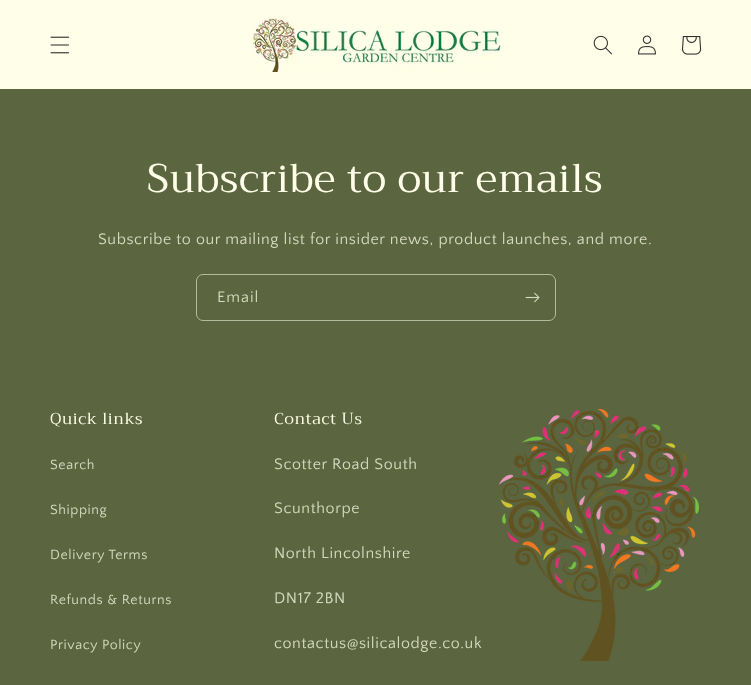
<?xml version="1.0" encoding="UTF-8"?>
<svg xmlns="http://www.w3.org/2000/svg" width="751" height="685">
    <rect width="100%" height="100%" fill="#5B6640"/>
    <rect x="0" y="0" width="751" height="89" fill="#FFFFE9"/>
    <image x="50" y="36" width="20" height="18" href="img_01.png"/>
    <image x="251" y="18" width="250" height="54" href="img_02.png"/>
    <image x="593" y="35" width="19" height="20" href="img_03.png"/>
    <image x="638" y="35" width="18" height="20" href="img_04.png"/>
    <image x="682" y="36" width="20" height="19" href="img_05.png"/>
    <text x="147" y="192" font-family="Trirong" font-size="40" letter-spacing="0.6" fill="#FFFFE9">Subscribe to our emails</text>
    <text x="98" y="244" font-family="Quattrocento Sans" font-size="16" letter-spacing="0.6" fill="#D6D9BF">Subscribe to our mailing list for insider news, product launches, and more.</text>
    <rect x="196.5" y="274.5" width="359" height="46" rx="6.5" fill="none" stroke="#B5BA9D"/>
    <text x="217" y="302" font-family="Quattrocento Sans" font-size="16" letter-spacing="1" fill="#D6D9BF">Email</text>
    <image x="525" y="292" width="15" height="11" href="img_06.png"/>
    <text x="50" y="424" font-family="Trirong" font-size="16" letter-spacing="0.6" fill="#FFFFE9">Quick links</text>
    <text x="50" y="469" font-family="Quattrocento Sans" font-size="14" letter-spacing="0.6" fill="#D6D9BF">Search</text>
    <text x="50" y="514" font-family="Quattrocento Sans" font-size="14" letter-spacing="0.6" fill="#D6D9BF">Shipping</text>
    <text x="50" y="559" font-family="Quattrocento Sans" font-size="14" letter-spacing="0.6" fill="#D6D9BF">Delivery Terms</text>
    <text x="50" y="604" font-family="Quattrocento Sans" font-size="14" letter-spacing="0.6" fill="#D6D9BF">Refunds &amp; Returns</text>
    <text x="50" y="649" font-family="Quattrocento Sans" font-size="14" letter-spacing="0.6" fill="#D6D9BF">Privacy Policy</text>
    <text x="274" y="424" font-family="Trirong" font-size="16" letter-spacing="0.6" fill="#FFFFE9">Contact Us</text>
    <text x="274" y="469" font-family="Quattrocento Sans" font-size="16" letter-spacing="0.6" fill="#D6D9BF">Scotter Road South</text>
    <text x="274" y="513" font-family="Quattrocento Sans" font-size="16" letter-spacing="0.6" fill="#D6D9BF">Scunthorpe</text>
    <text x="274" y="558" font-family="Quattrocento Sans" font-size="16" letter-spacing="0.6" fill="#D6D9BF">North Lincolnshire</text>
    <text x="274" y="603" font-family="Quattrocento Sans" font-size="16" letter-spacing="0.6" fill="#D6D9BF">DN17 2BN</text>
    <text x="274" y="648" font-family="Quattrocento Sans" font-size="16" letter-spacing="0.6" fill="#D6D9BF">contactus@silicalodge.co.uk</text>
    <image x="499" y="409" width="200" height="252" href="img_07.png"/>
</svg>
